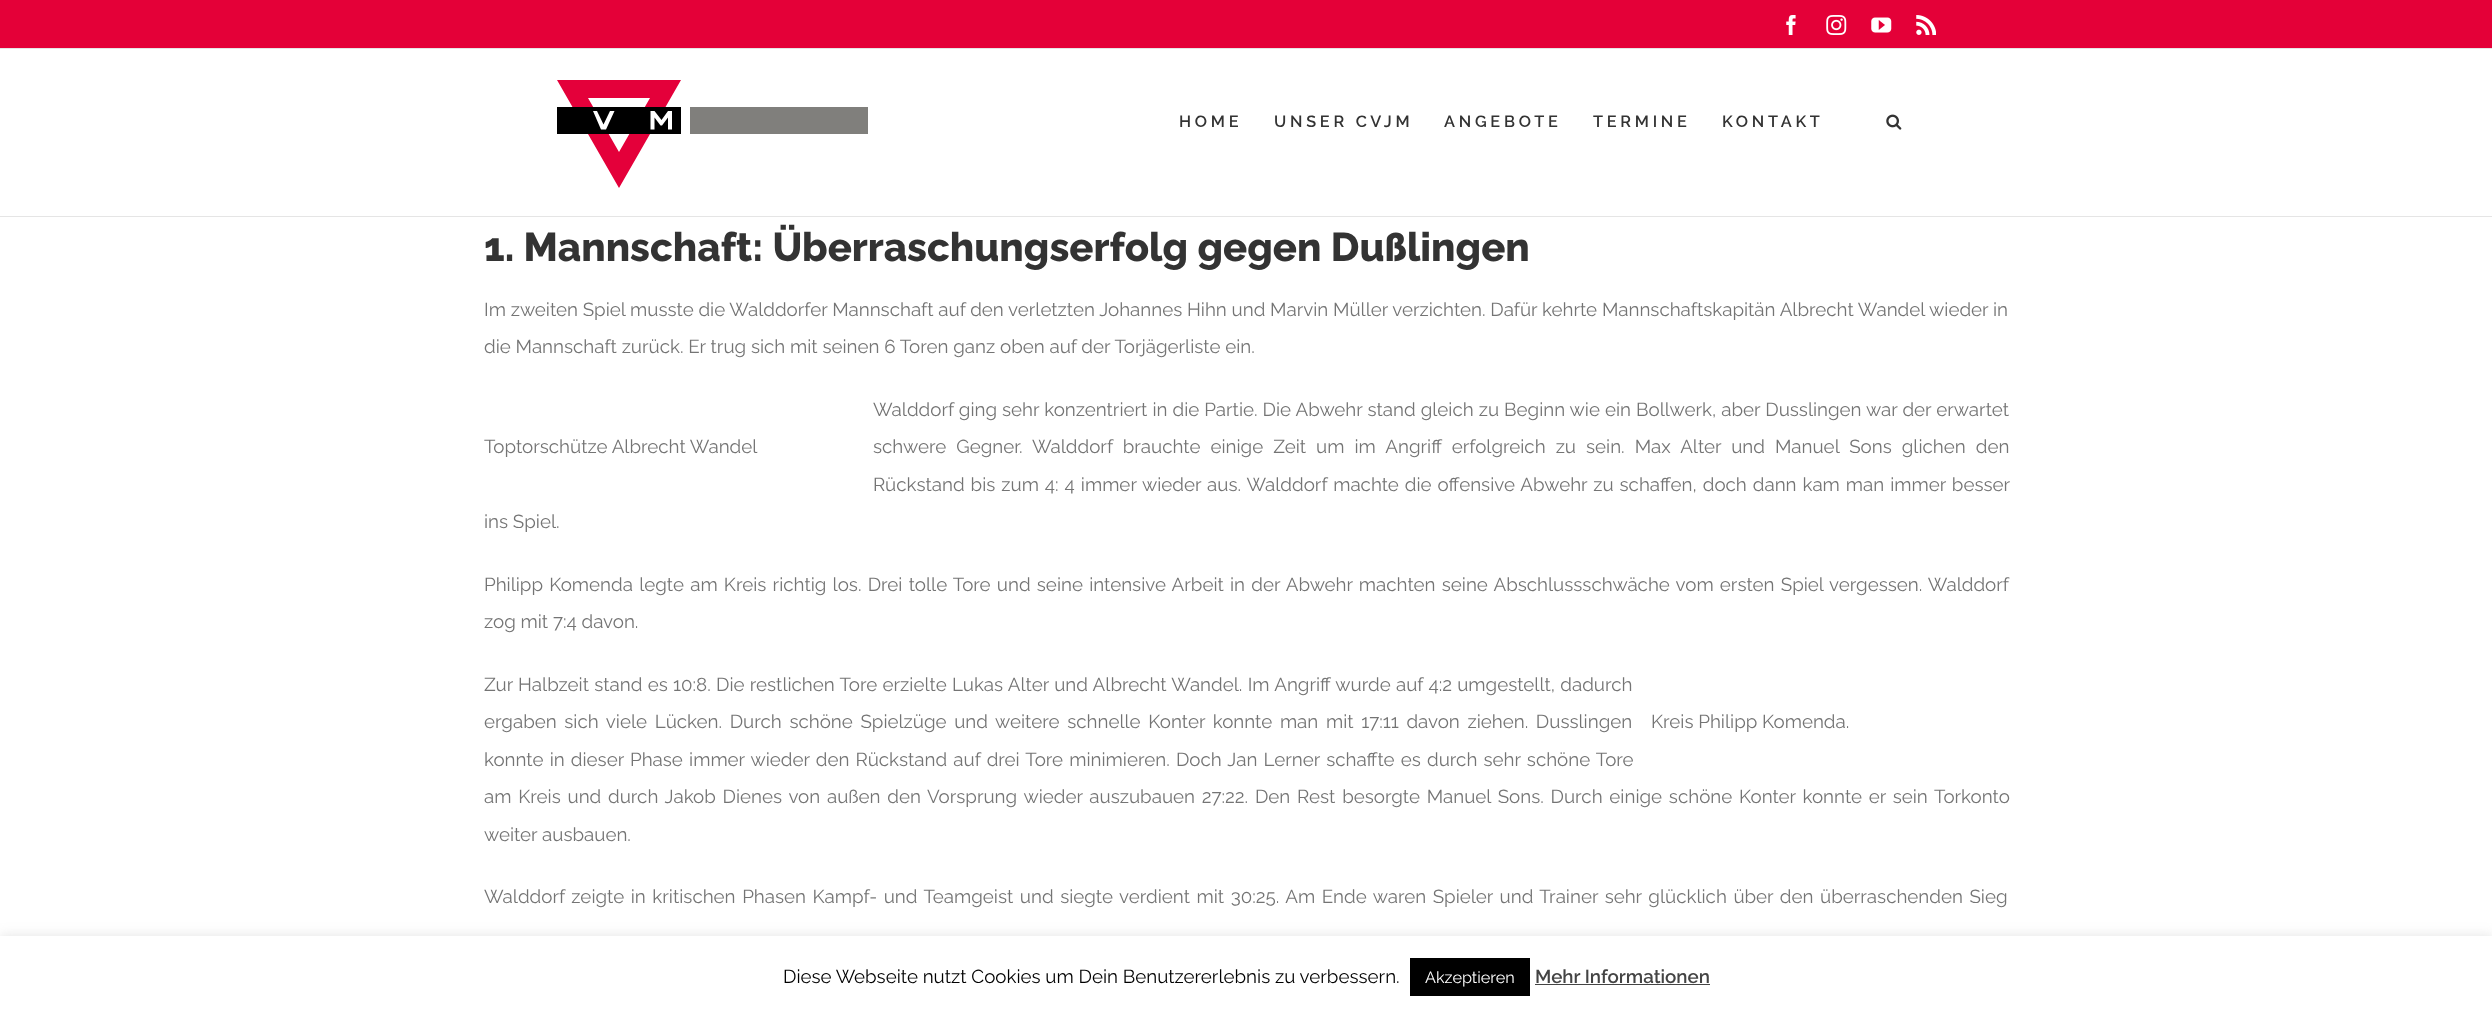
<?xml version="1.0" encoding="UTF-8"?>
<svg xmlns="http://www.w3.org/2000/svg" width="2492" height="1011">
    <defs>
        <filter id="blur1" x="-50%" y="-200%" width="200%" height="500%"><feGaussianBlur stdDeviation="6"/></filter>
    </defs>
    <rect width="100%" height="100%" fill="#FFFFFF"/>
    <rect x="0" y="0" width="2492" height="48" fill="#E40038"/>
    <rect x="0" y="48" width="2492" height="1" fill="#E5E5E5"/>
    <image x="1786" y="15" width="10" height="20" href="img_01.png"/>
    <image x="1826" y="15" width="21" height="20" href="img_02.png"/>
    <image x="1871" y="17" width="21" height="16" href="img_03.png"/>
    <image x="1916" y="15" width="20" height="20" href="img_04.png"/>
    <rect x="0" y="216" width="2492" height="1" fill="#E5E5E5"/>
    <path d="M 588 98 H 650 L 619 152 Z M 557 80 L 619 188 L 681 80 Z" fill="#E4003A"/>
    <rect x="557" y="107" width="124" height="27" fill="#000000"/>
    <rect x="690" y="107" width="178" height="27" fill="#807F7C"/>
    <path d="M 603.5 124.5 L 610 111 H 614.5 L 606 129.5 H 601 L 593 111 H 597 Z" fill="#FFFFFF"/>
    <path d="M 672 129.5 V 111 H 668 L 661.5 120 L 654.5 111 H 650.5 V 129.5 H 654.5 V 117.5 L 660.5 125.5 H 662 L 668 117.5 V 129.5 Z" fill="#FFFFFF"/>
    <text x="1179" y="127" font-family="Raleway" font-size="16.25" font-weight="600" letter-spacing="3.75" fill="#333333">HOME</text>
    <text x="1274" y="127" font-family="Raleway" font-size="16.25" font-weight="600" letter-spacing="3.75" fill="#333333">UNSER CVJM</text>
    <text x="1444" y="127" font-family="Raleway" font-size="16.25" font-weight="600" letter-spacing="3.75" fill="#333333">ANGEBOTE</text>
    <text x="1593" y="127" font-family="Raleway" font-size="16.25" font-weight="600" letter-spacing="3.75" fill="#333333">TERMINE</text>
    <text x="1722" y="127" font-family="Raleway" font-size="16.25" font-weight="600" letter-spacing="3.75" fill="#333333">KONTAKT</text>
    <image x="1886" y="114" width="16" height="16" href="img_05.png"/>
    <text x="484" y="261" font-family="Raleway" font-size="40" font-weight="800" fill="#333333">1. Mannschaft: Überraschungserfolg gegen Dußlingen</text>
    <text font-family="Raleway" font-size="18.75" fill="#747474">
        <tspan x="484" y="316">Im zweiten Spiel musste die Walddorfer Mannschaft auf den verletzten Johannes Hihn und Marvin Müller verzichten. Dafür kehrte Mannschaftskapitän Albrecht Wandel wieder in</tspan>
        <tspan x="484" y="353">die Mannschaft zurück. Er trug sich mit seinen 6 Toren ganz oben auf der Torjägerliste ein.</tspan>
    </text>
    <text font-family="Raleway" font-size="18.75" fill="#747474">
        <tspan x="873" y="416" word-spacing="0.25">Walddorf ging sehr konzentriert in die Partie. Die Abwehr stand gleich zu Beginn wie ein Bollwerk, aber Dusslingen war der erwartet</tspan>
        <tspan x="873" y="453" word-spacing="5.25">schwere Gegner. Walddorf brauchte einige Zeit um im Angriff erfolgreich zu sein. Max Alter und Manuel Sons glichen den</tspan>
    </text>
    <text x="873" y="491" word-spacing="1.2" font-family="Raleway" font-size="18.75" fill="#747474">Rückstand bis zum 4: 4 immer wieder aus. Walddorf machte die offensive Abwehr zu schaffen, doch dann kam man immer besser</text>
    <text x="484" y="528" font-family="Raleway" font-size="18.75" fill="#747474">ins Spiel.</text>
    <text x="484" y="453" font-family="Raleway" font-size="18.75" fill="#747474">Toptorschütze Albrecht Wandel</text>
    <text font-family="Raleway" font-size="18.75" fill="#747474">
        <tspan x="484" y="591" word-spacing="1.45">Philipp Komenda legte am Kreis richtig los. Drei tolle Tore und seine intensive Arbeit in der Abwehr machten seine Abschlussschwäche vom ersten Spiel vergessen. Walddorf</tspan>
        <tspan x="484" y="628">zog mit 7:4 davon.</tspan>
    </text>
    <text font-family="Raleway" font-size="18.75" fill="#747474">
        <tspan x="484" y="691" word-spacing="0.5">Zur Halbzeit stand es 10:8. Die restlichen Tore erzielte Lukas Alter und Albrecht Wandel. Im Angriff wurde auf 4:2 umgestellt, dadurch</tspan>
        <tspan x="484" y="728" word-spacing="2.9">ergaben sich viele Lücken. Durch schöne Spielzüge und weitere schnelle Konter konnte man mit 17:11 davon ziehen. Dusslingen</tspan>
    </text>
    <text font-family="Raleway" font-size="18.75" fill="#747474">
        <tspan x="484" y="766" word-spacing="1.4">konnte in dieser Phase immer wieder den Rückstand auf drei Tore minimieren. Doch Jan Lerner schaffte es durch sehr schöne Tore</tspan>
        <tspan x="484" y="803" word-spacing="2">am Kreis und durch Jakob Dienes von außen den Vorsprung wieder auszubauen 27:22. Den Rest besorgte Manuel Sons. Durch einige schöne Konter konnte er sein Torkonto</tspan>
    </text>
    <text x="484" y="841" font-family="Raleway" font-size="18.75" fill="#747474">weiter ausbauen.</text>
    <text x="1651" y="728" font-family="Raleway" font-size="18.75" fill="#747474">Kreis Philipp Komenda.</text>
    <text x="484" y="903" word-spacing="1.8" font-family="Raleway" font-size="18.75" fill="#747474">Walddorf zeigte in kritischen Phasen Kampf- und Teamgeist und siegte verdient mit 30:25. Am Ende waren Spieler und Trainer sehr glücklich über den überraschenden Sieg</text>
    <rect x="0" y="935" width="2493" height="75" fill="#ACABAB" fill-opacity="0.3" filter="url(#blur1)"/>
    <rect x="0" y="936" width="2492" height="75" fill="#FFFFFF"/>
    <text x="783" y="983" font-family="Raleway" font-size="18.75" fill="#000000">Diese Webseite nutzt Cookies um Dein Benutzererlebnis zu verbessern.</text>
    <rect x="1410" y="958" width="120" height="38" fill="#000000"/>
    <text x="1425" y="983" font-family="Raleway" font-size="16.25" fill="#FFFFFF">Akzeptieren</text>
    <text x="1535" y="983" font-family="Raleway" font-size="18.75" font-weight="600" fill="#444444">Mehr Informationen</text>
    <rect x="1535" y="984" width="175" height="1" fill="#444444"/>
</svg>
